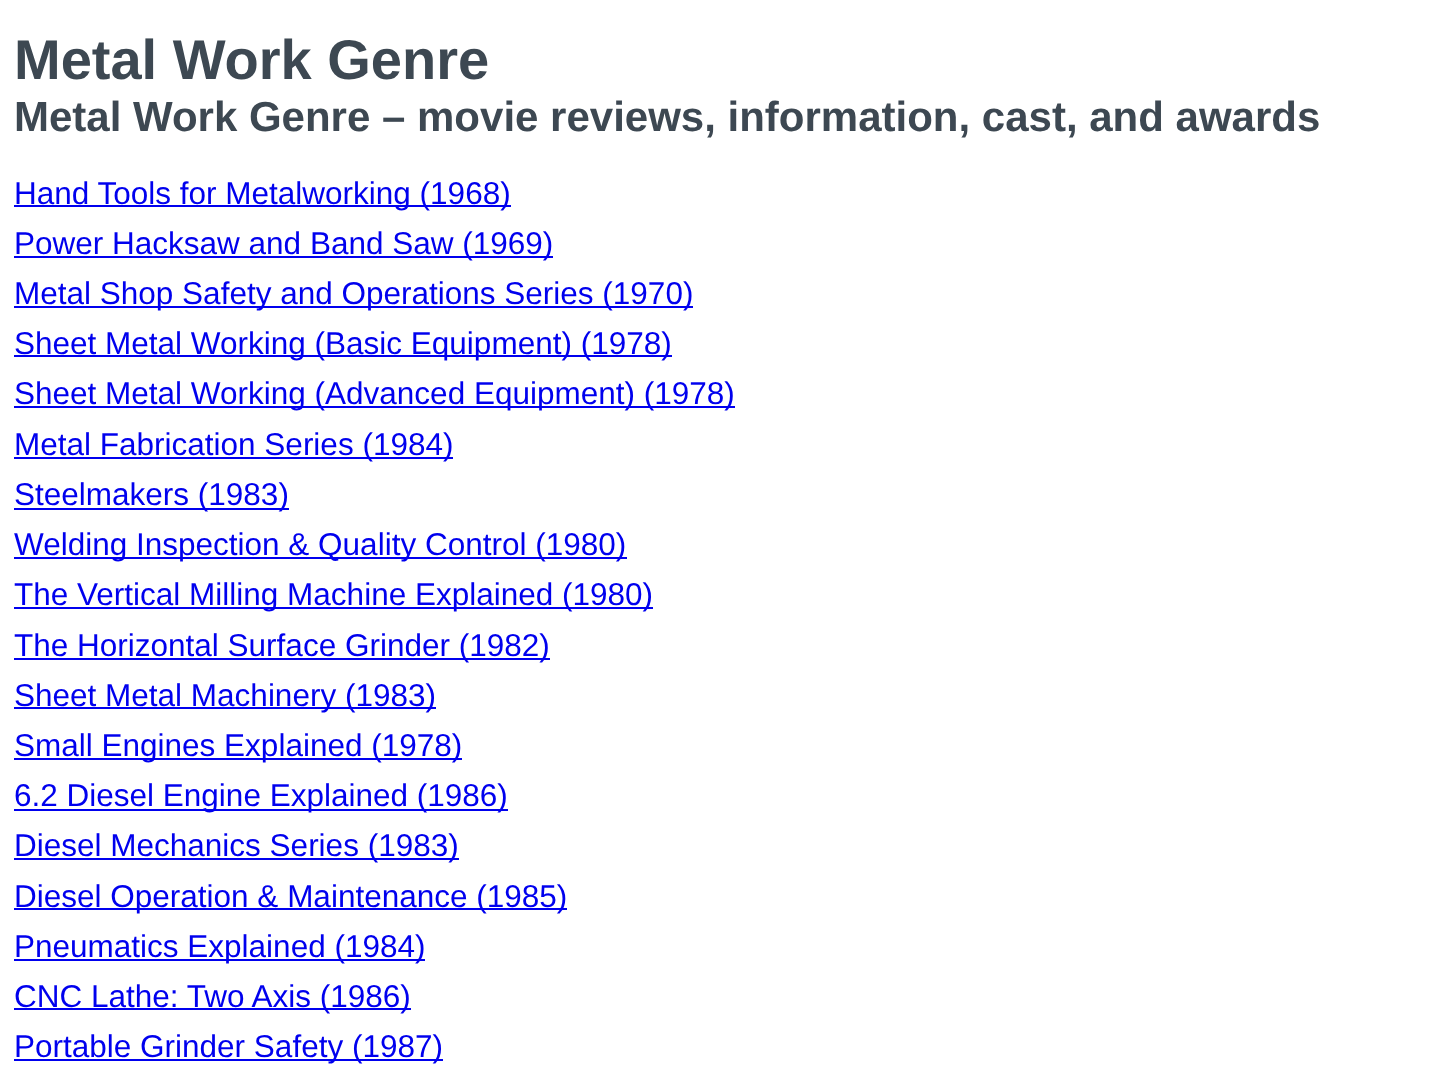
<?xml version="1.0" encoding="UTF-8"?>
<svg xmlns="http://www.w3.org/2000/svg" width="1440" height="1090">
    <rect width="100%" height="100%" fill="#FFFFFF"/>
    <text x="14" y="79" font-family="Liberation Sans" font-size="56" font-weight="700" fill="#3D4852">Metal Work Genre</text>
    <text x="14" y="131" font-family="Liberation Sans" font-size="42" font-weight="700" fill="#3D4852">Metal Work Genre – movie reviews, information, cast, and awards</text>
    <rect x="14" y="205" width="497" height="2" fill="#0000EE"/>
    <text x="14" y="204" font-family="Liberation Sans" font-size="31.5" fill="#0000EE">Hand Tools for Metalworking (1968)</text>
    <rect x="14" y="256" width="539" height="2" fill="#0000EE"/>
    <text x="14" y="254" font-family="Liberation Sans" font-size="31.5" fill="#0000EE">Power Hacksaw and Band Saw (1969)</text>
    <rect x="14" y="306" width="679" height="2" fill="#0000EE"/>
    <text x="14" y="304" font-family="Liberation Sans" font-size="31.5" fill="#0000EE">Metal Shop Safety and Operations Series (1970)</text>
    <rect x="14" y="355" width="658" height="2" fill="#0000EE"/>
    <text x="14" y="354" font-family="Liberation Sans" font-size="31.5" fill="#0000EE">Sheet Metal Working (Basic Equipment) (1978)</text>
    <rect x="14" y="406" width="721" height="2" fill="#0000EE"/>
    <text x="14" y="404" font-family="Liberation Sans" font-size="31.5" fill="#0000EE">Sheet Metal Working (Advanced Equipment) (1978)</text>
    <rect x="14" y="457" width="439" height="2" fill="#0000EE"/>
    <text x="14" y="455" font-family="Liberation Sans" font-size="31.5" fill="#0000EE">Metal Fabrication Series (1984)</text>
    <rect x="14" y="508" width="275" height="2" fill="#0000EE"/>
    <text x="14" y="505" font-family="Liberation Sans" font-size="31.5" fill="#0000EE">Steelmakers (1983)</text>
    <rect x="14" y="557" width="613" height="2" fill="#0000EE"/>
    <text x="14" y="555" font-family="Liberation Sans" font-size="31.5" fill="#0000EE">Welding Inspection &amp; Quality Control (1980)</text>
    <rect x="14" y="607" width="639" height="2" fill="#0000EE"/>
    <text x="14" y="605" font-family="Liberation Sans" font-size="31.5" fill="#0000EE">The Vertical Milling Machine Explained (1980)</text>
    <rect x="14" y="658" width="536" height="2" fill="#0000EE"/>
    <text x="14" y="656" font-family="Liberation Sans" font-size="31.5" fill="#0000EE">The Horizontal Surface Grinder (1982)</text>
    <rect x="14" y="707" width="422" height="2" fill="#0000EE"/>
    <text x="14" y="706" font-family="Liberation Sans" font-size="31.5" fill="#0000EE">Sheet Metal Machinery (1983)</text>
    <rect x="14" y="758" width="448" height="2" fill="#0000EE"/>
    <text x="14" y="756" font-family="Liberation Sans" font-size="31.5" fill="#0000EE">Small Engines Explained (1978)</text>
    <rect x="14" y="809" width="494" height="2" fill="#0000EE"/>
    <text x="14" y="806" font-family="Liberation Sans" font-size="31.5" fill="#0000EE">6.2 Diesel Engine Explained (1986)</text>
    <rect x="14" y="858" width="445" height="2" fill="#0000EE"/>
    <text x="14" y="856" font-family="Liberation Sans" font-size="31.5" fill="#0000EE">Diesel Mechanics Series (1983)</text>
    <rect x="14" y="908" width="553" height="2" fill="#0000EE"/>
    <text x="14" y="907" font-family="Liberation Sans" font-size="31.5" fill="#0000EE">Diesel Operation &amp; Maintenance (1985)</text>
    <rect x="14" y="959" width="411" height="2" fill="#0000EE"/>
    <text x="14" y="957" font-family="Liberation Sans" font-size="31.5" fill="#0000EE">Pneumatics Explained (1984)</text>
    <rect x="14" y="1008" width="397" height="2" fill="#0000EE"/>
    <text x="14" y="1007" font-family="Liberation Sans" font-size="31.5" fill="#0000EE">CNC Lathe: Two Axis (1986)</text>
    <rect x="14" y="1059" width="429" height="2" fill="#0000EE"/>
    <text x="14" y="1057" font-family="Liberation Sans" font-size="31.5" fill="#0000EE">Portable Grinder Safety (1987)</text>
</svg>
